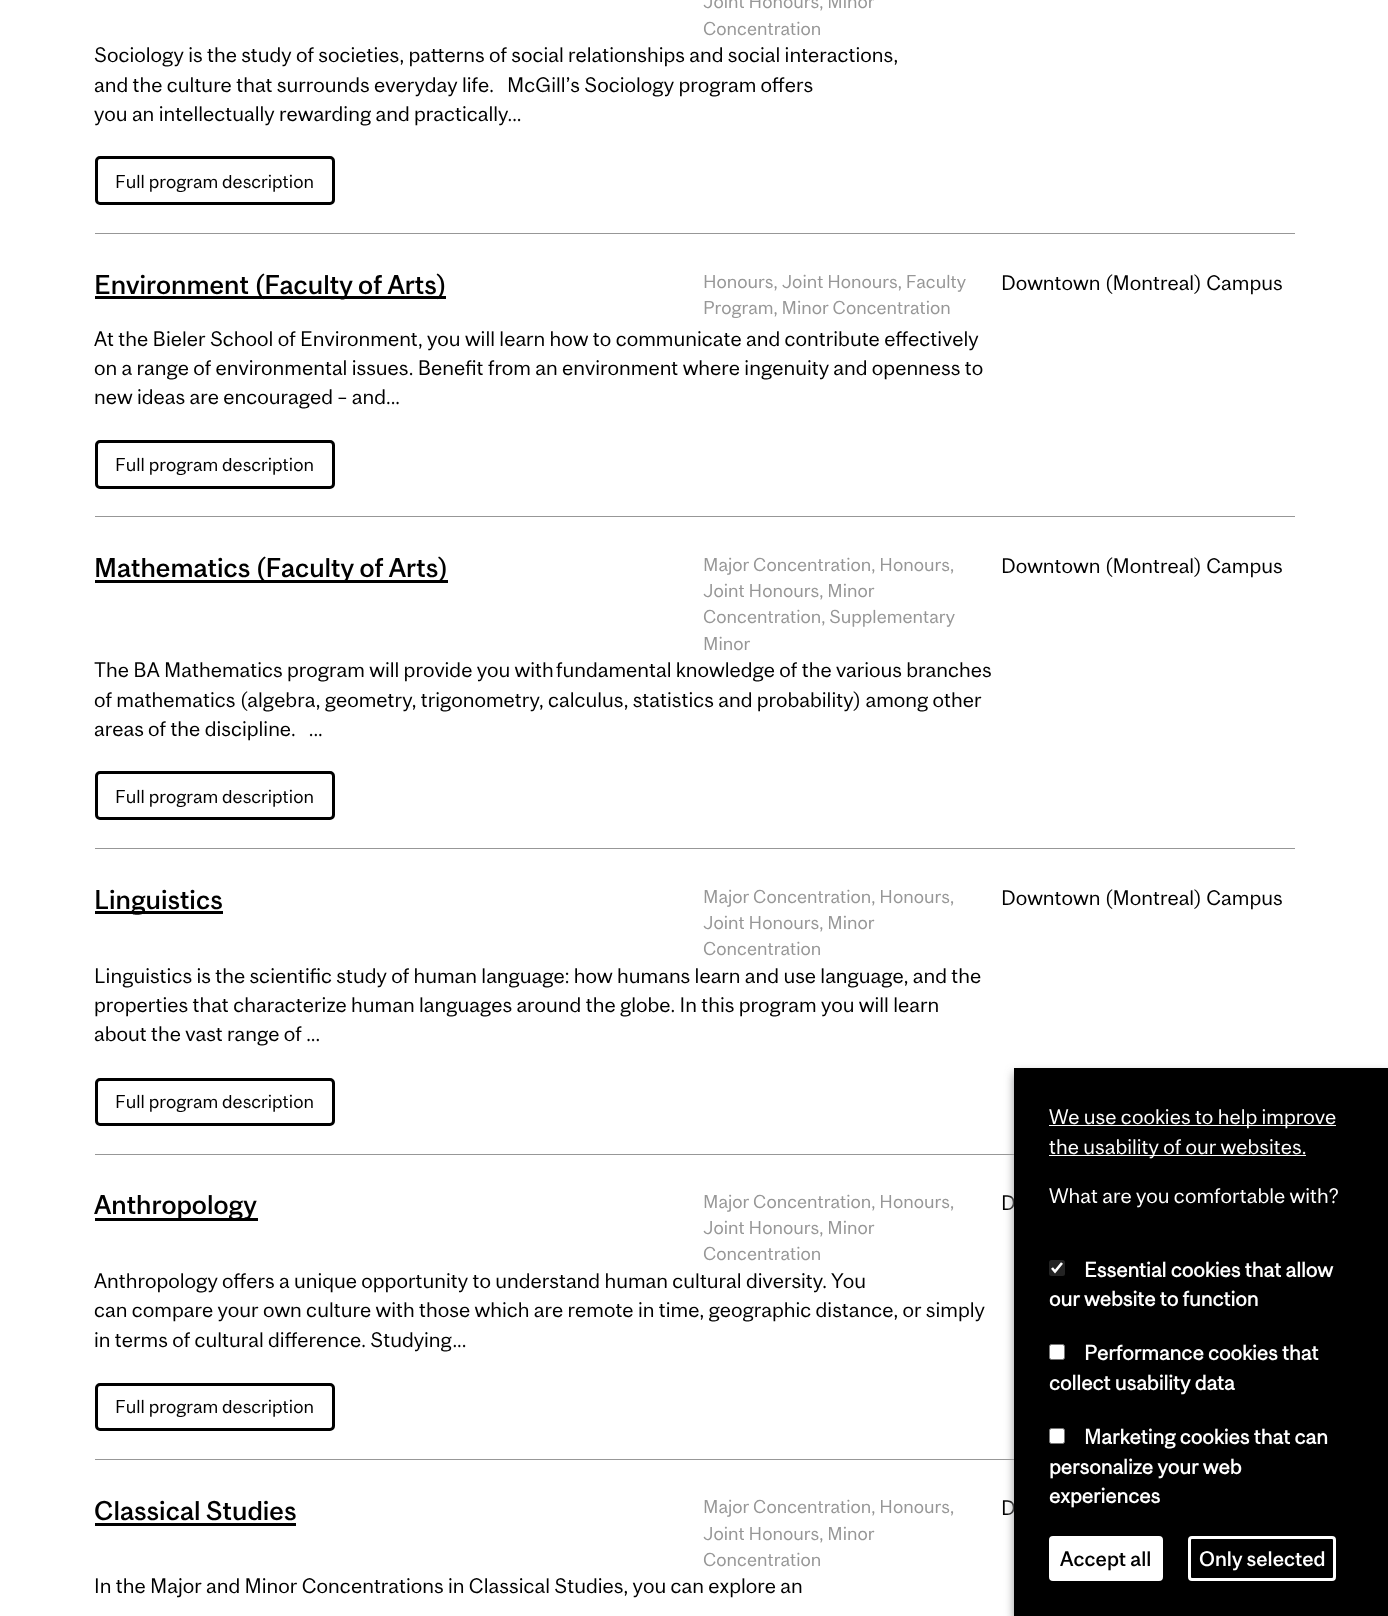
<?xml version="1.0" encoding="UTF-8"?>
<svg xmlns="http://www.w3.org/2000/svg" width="1388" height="1616">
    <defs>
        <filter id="blur1" x="-50%" y="-200%" width="200%" height="500%"><feGaussianBlur stdDeviation="5"/></filter>
    </defs>
    <rect width="100%" height="100%" fill="#FFFFFF"/>
    <rect x="95" y="233" width="1200" height="1" fill="#979797"/>
    <text font-family="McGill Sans" font-size="17.5" fill="#979797">
        <tspan x="703" y="8">Joint Honours, Minor</tspan>
        <tspan x="703" y="35">Concentration</tspan>
    </text>
    <text font-family="McGill Sans" font-size="19.6" fill="#000000">
        <tspan x="94" y="62">Sociology is the study of societies, patterns of social relationships and social interactions,</tspan>
        <tspan x="94" y="92">and the culture that surrounds everyday life.</tspan>
    </text>
    <text x="507" y="92" font-family="McGill Sans" font-size="19.6" fill="#000000">McGill’s Sociology program offers</text>
    <text x="94" y="121" font-family="McGill Sans" font-size="19.6" fill="#000000">you an intellectually rewarding and practically...</text>
    <rect x="96.5" y="157.5" width="237" height="46" rx="3.5" fill="none" stroke="#000000" stroke-width="3"/>
    <text x="115" y="188" font-family="McGill Sans" font-size="17.5" fill="#000000">Full program description</text>
    <rect x="95" y="516" width="1200" height="1" fill="#979797"/>
    <rect x="95" y="296" width="351" height="3" fill="#000000"/>
    <text x="94" y="294" font-family="McGill Sans" font-size="25.25" font-weight="500" fill="#000000">Environment (Faculty of Arts)</text>
    <text font-family="McGill Sans" font-size="17.5" fill="#979797">
        <tspan x="703" y="288">Honours, Joint Honours, Faculty</tspan>
        <tspan x="703" y="314">Program, Minor Concentration</tspan>
    </text>
    <text x="1001" y="290" font-family="McGill Sans" font-size="19.6" fill="#000000">Downtown (Montreal) Campus</text>
    <text font-family="McGill Sans" font-size="19.6" fill="#000000">
        <tspan x="94" y="346">At the Bieler School of Environment, you will learn how to communicate and contribute effectively</tspan>
        <tspan x="94" y="375">on a range of environmental issues. Benefit from an environment where ingenuity and openness to</tspan>
        <tspan x="94" y="404">new ideas are encouraged – and...</tspan>
    </text>
    <rect x="96.5" y="441.5" width="237" height="46" rx="3.5" fill="none" stroke="#000000" stroke-width="3"/>
    <text x="115" y="471" font-family="McGill Sans" font-size="17.5" fill="#000000">Full program description</text>
    <rect x="95" y="848" width="1200" height="1" fill="#979797"/>
    <rect x="95" y="580" width="353" height="3" fill="#000000"/>
    <text x="94" y="577" font-family="McGill Sans" font-size="25.25" font-weight="500" fill="#000000">Mathematics (Faculty of Arts)</text>
    <text font-family="McGill Sans" font-size="17.5" fill="#979797">
        <tspan x="703" y="571">Major Concentration, Honours,</tspan>
        <tspan x="703" y="597">Joint Honours, Minor</tspan>
        <tspan x="703" y="623">Concentration, Supplementary</tspan>
        <tspan x="703" y="650">Minor</tspan>
    </text>
    <text x="1001" y="573" font-family="McGill Sans" font-size="19.6" fill="#000000">Downtown (Montreal) Campus</text>
    <text font-family="McGill Sans" font-size="19.6" fill="#000000" xml:space="preserve"><tspan x="94" y="677">The BA Mathematics program will provide you with fundamental knowledge of the various branches</tspan><tspan x="94" y="707">of mathematics (algebra, geometry, trigonometry, calculus, statistics and probability) among other</tspan><tspan x="94" y="736">areas of the discipline.   ...</tspan></text>
    <rect x="96.5" y="772.5" width="237" height="46" rx="3.5" fill="none" stroke="#000000" stroke-width="3"/>
    <text x="115" y="803" font-family="McGill Sans" font-size="17.5" fill="#000000">Full program description</text>
    <rect x="95" y="1154" width="919" height="1" fill="#979797"/>
    <rect x="95" y="911" width="128" height="3" fill="#000000"/>
    <text x="94" y="909" font-family="McGill Sans" font-size="25.25" font-weight="500" fill="#000000">Linguistics</text>
    <text font-family="McGill Sans" font-size="17.5" fill="#979797">
        <tspan x="703" y="903">Major Concentration, Honours,</tspan>
        <tspan x="703" y="929">Joint Honours, Minor</tspan>
        <tspan x="703" y="955">Concentration</tspan>
    </text>
    <text x="1001" y="905" font-family="McGill Sans" font-size="19.6" fill="#000000">Downtown (Montreal) Campus</text>
    <text font-family="McGill Sans" font-size="19.6" fill="#000000">
        <tspan x="94" y="983">Linguistics is the scientific study of human language: how humans learn and use language, and the</tspan>
        <tspan x="94" y="1012">properties that characterize human languages around the globe. In this program you will learn</tspan>
        <tspan x="94" y="1041">about the vast range of ...</tspan>
    </text>
    <rect x="96.5" y="1079.5" width="237" height="45" rx="3.5" fill="none" stroke="#000000" stroke-width="3"/>
    <text x="115" y="1108" font-family="McGill Sans" font-size="17.5" fill="#000000">Full program description</text>
    <rect x="95" y="1459" width="919" height="1" fill="#979797"/>
    <rect x="95" y="1218" width="163" height="3" fill="#000000"/>
    <text x="94" y="1214" font-family="McGill Sans" font-size="25.25" font-weight="500" fill="#000000">Anthropology</text>
    <text font-family="McGill Sans" font-size="17.5" fill="#979797">
        <tspan x="703" y="1208">Major Concentration, Honours,</tspan>
        <tspan x="703" y="1234">Joint Honours, Minor</tspan>
        <tspan x="703" y="1260">Concentration</tspan>
    </text>
    <text x="1001" y="1210" font-family="McGill Sans" font-size="19.6" fill="#000000">D</text>
    <text font-family="McGill Sans" font-size="19.6" fill="#000000">
        <tspan x="94" y="1288">Anthropology offers a unique opportunity to understand human cultural diversity. You</tspan>
        <tspan x="94" y="1317">can compare your own culture with those which are remote in time, geographic distance, or simply</tspan>
        <tspan x="94" y="1347">in terms of cultural difference. Studying...</tspan>
    </text>
    <rect x="96.5" y="1384.5" width="237" height="45" rx="3.5" fill="none" stroke="#000000" stroke-width="3"/>
    <text x="115" y="1413" font-family="McGill Sans" font-size="17.5" fill="#000000">Full program description</text>
    <text x="94" y="1520" font-family="McGill Sans" font-size="25.25" font-weight="500" fill="#000000">Classical Studies</text>
    <rect x="95" y="1523" width="201" height="3" fill="#000000"/>
    <text font-family="McGill Sans" font-size="17.5" fill="#979797">
        <tspan x="703" y="1513">Major Concentration, Honours,</tspan>
        <tspan x="703" y="1540">Joint Honours, Minor</tspan>
        <tspan x="703" y="1566">Concentration</tspan>
    </text>
    <text x="1001" y="1515" font-family="McGill Sans" font-size="19.6" fill="#000000">D</text>
    <text x="94" y="1593" font-family="McGill Sans" font-size="19.6" fill="#000000">In the Major and Minor Concentrations in Classical Studies, you can explore an</text>
    <rect x="1014" y="1073" width="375" height="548" fill="#979799" filter="url(#blur1)"/>
    <rect x="1014" y="1068" width="374" height="548" fill="#000000"/>
    <rect x="1049" y="1125" width="287" height="1" fill="#FFFFFF"/>
    <text x="1049" y="1124" font-family="McGill Sans" font-size="19.6" fill="#FFFFFF">We use cookies to help improve</text>
    <rect x="1049" y="1155" width="257" height="1" fill="#FFFFFF"/>
    <text x="1049" y="1154" font-family="McGill Sans" font-size="19.6" fill="#FFFFFF">the usability of our websites.</text>
    <text x="1049" y="1203" font-family="McGill Sans" font-size="19.6" fill="#FFFFFF">What are you comfortable with?</text>
    <rect x="1049" y="1260" width="16" height="16" rx="2.5" fill="#232323"/>
    <path d="M 1052 1268 L 1055 1271.5 L 1062 1263" fill="none" stroke="#FFFFFF" stroke-width="2.6"/>
    <text x="1084" y="1277" font-family="McGill Sans" font-size="19.6" font-weight="700" fill="#FFFFFF">Essential cookies that allow</text>
    <text x="1049" y="1306" font-family="McGill Sans" font-size="19.6" font-weight="700" fill="#FFFFFF">our website to function</text>
    <rect x="1049.5" y="1344.5" width="15" height="15" rx="2" fill="#FFFFFF" stroke="#767676"/>
    <text x="1084" y="1360" font-family="McGill Sans" font-size="19.6" font-weight="700" fill="#FFFFFF">Performance cookies that</text>
    <text x="1049" y="1390" font-family="McGill Sans" font-size="19.6" font-weight="700" fill="#FFFFFF">collect usability data</text>
    <rect x="1049.5" y="1428.5" width="15" height="15" rx="2" fill="#FFFFFF" stroke="#767676"/>
    <text x="1084" y="1444" font-family="McGill Sans" font-size="19.6" font-weight="700" fill="#FFFFFF">Marketing cookies that can</text>
    <text font-family="McGill Sans" font-size="19.6" font-weight="700" fill="#FFFFFF">
        <tspan x="1049" y="1474">personalize your web</tspan>
        <tspan x="1049" y="1503">experiences</tspan>
    </text>
    <rect x="1050.5" y="1537.5" width="111" height="42" rx="2.5" fill="#FFFFFF" stroke="#FFFFFF" stroke-width="3"/>
    <text x="1060" y="1566" font-family="McGill Sans" font-size="19.6" font-weight="500" fill="#000000">Accept all</text>
    <rect x="1189.5" y="1537.5" width="145" height="42" rx="2.5" fill="none" stroke="#FFFFFF" stroke-width="3"/>
    <text x="1199" y="1566" font-family="McGill Sans" font-size="19.6" font-weight="500" fill="#FFFFFF">Only selected</text>
</svg>
